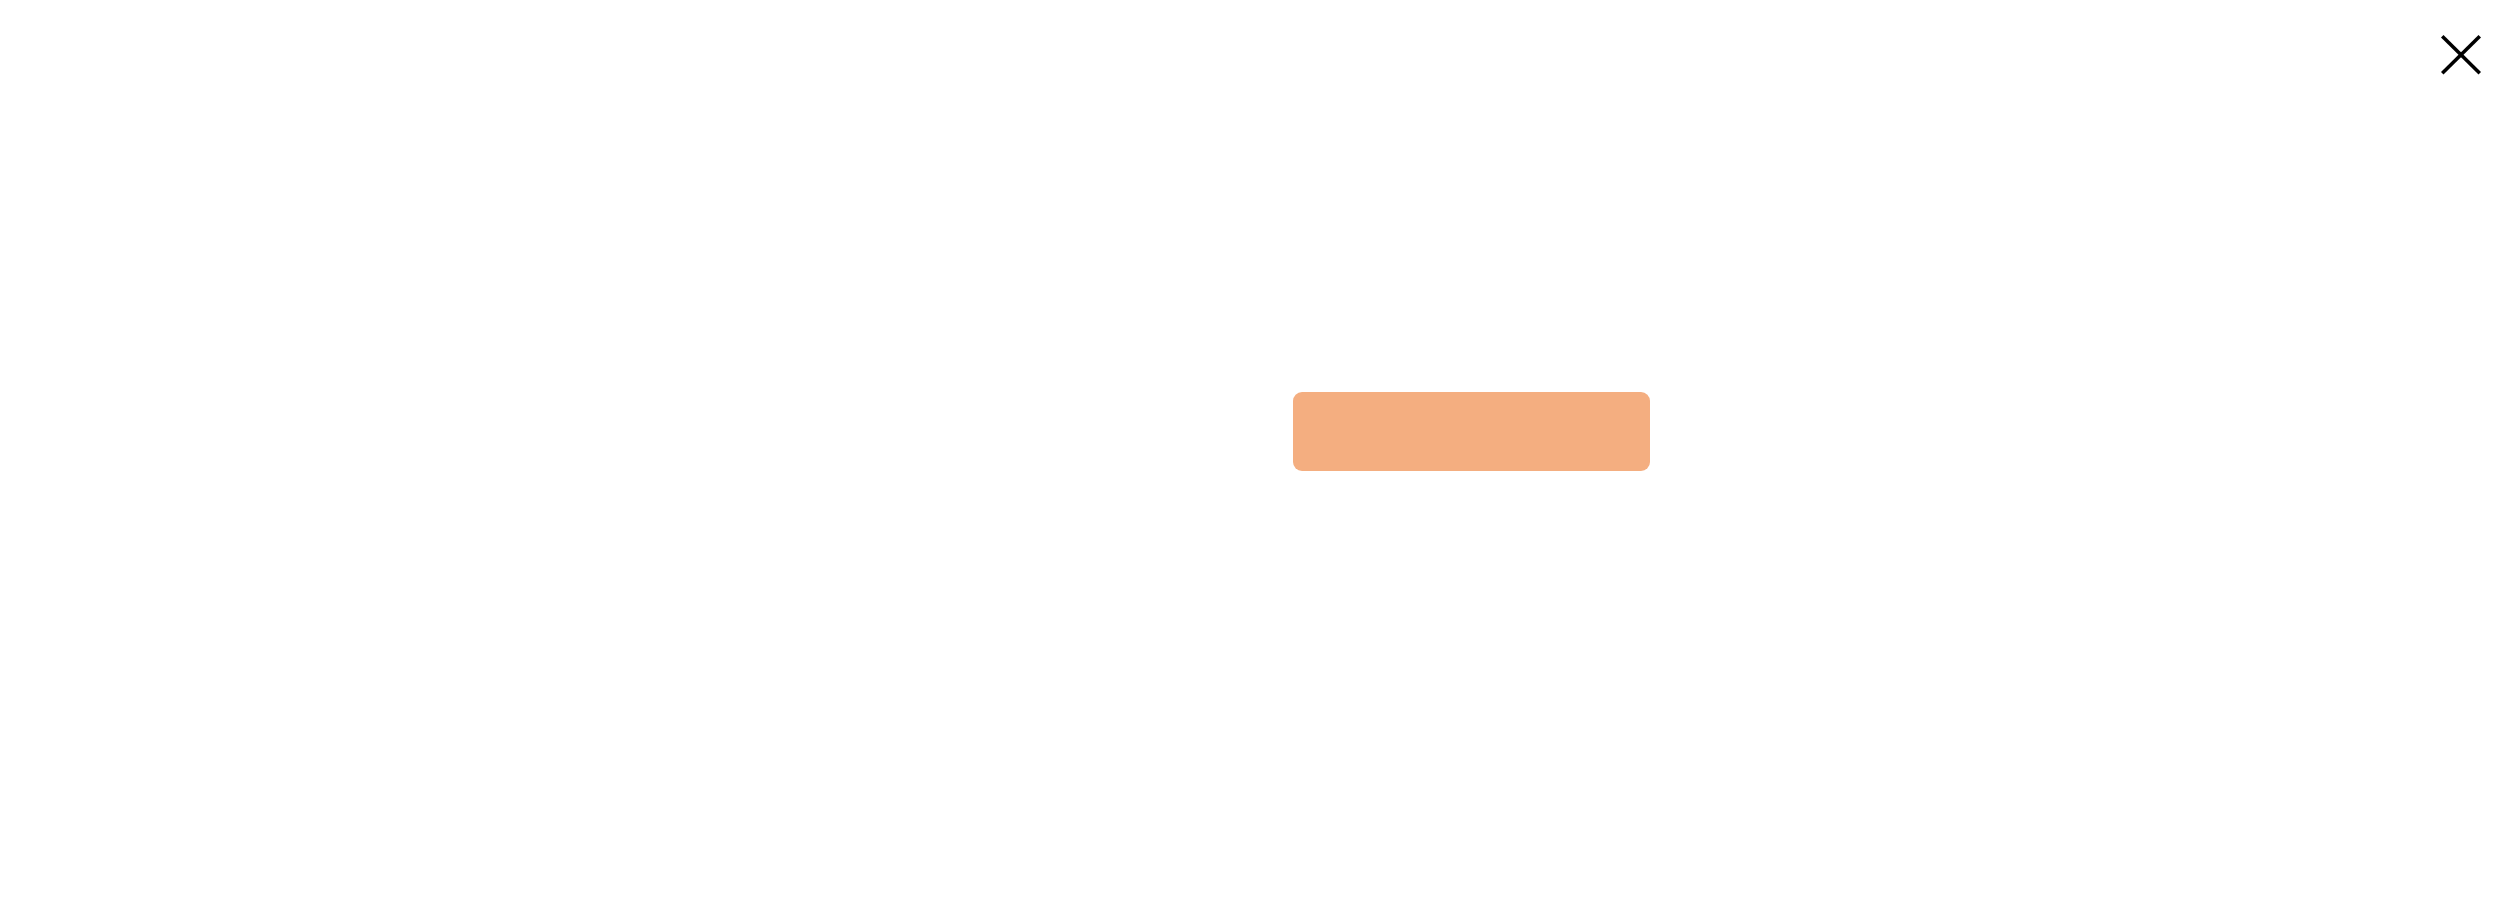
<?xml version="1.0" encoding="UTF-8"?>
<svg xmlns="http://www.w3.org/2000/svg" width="2515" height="923">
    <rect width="100%" height="100%" fill="#FFFFFF"/>
    <path d="M 2441 37.5 L 2443.5 35 L 2481 72 L 2478.5 74.5 Z" fill="#000000" fill-rule="evenodd"/>
    <path d="M 2478.5 35 L 2481 37.5 L 2443.5 74.5 L 2441 72 Z" fill="#000000" fill-rule="evenodd"/>
    <rect x="1293" y="392" width="357" height="79" rx="9" fill="#F4AE80"/>
</svg>
